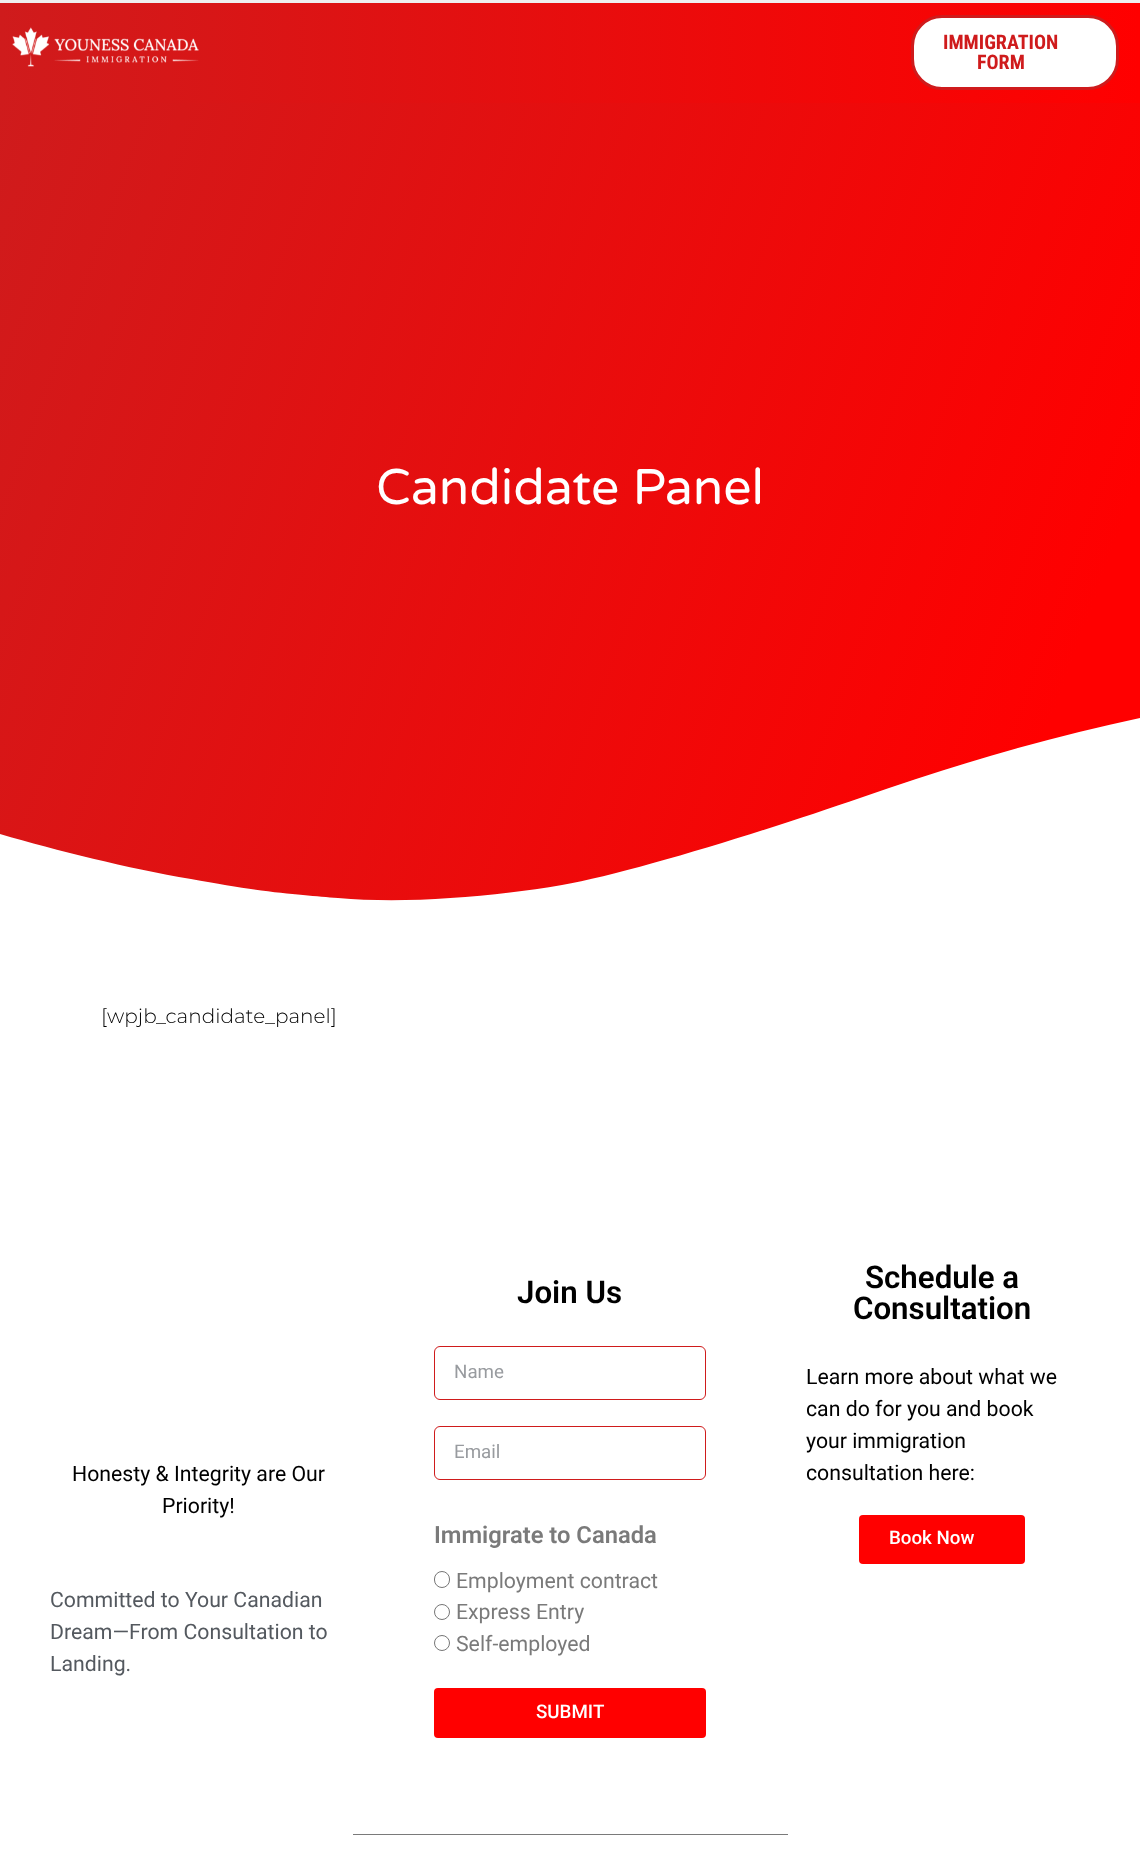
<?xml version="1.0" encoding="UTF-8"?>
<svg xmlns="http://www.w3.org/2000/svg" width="1140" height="1873">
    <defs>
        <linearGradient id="g1" gradientUnits="userSpaceOnUse" x1="0" y1="53" x2="1140" y2="52"><stop offset="0" stop-color="#CF1B1C"/><stop offset="1" stop-color="#FF0000"/></linearGradient>
        <linearGradient id="g2" gradientUnits="userSpaceOnUse" x1="-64" y1="276" x2="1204" y2="737"><stop offset="0" stop-color="#CF1B1C"/><stop offset="0.89" stop-color="#FF0000"/></linearGradient>
    </defs>
    <rect width="100%" height="100%" fill="#EFEFEF"/>
    <rect x="0" y="3" width="1140" height="100" fill="url(#g1)"/>
    <image x="12" y="27" width="187" height="40" href="img_01.png"/>
    <rect x="912.5" y="16.5" width="205" height="72" rx="29.5" fill="#FFFFFF" stroke="#CF1B1C" stroke-width="3"/>
    <text x="943" y="49" font-family="Roboto Condensed" font-size="20" font-weight="700" fill="#CF1B1C">IMMIGRATION</text>
    <text x="977" y="69" font-family="Roboto Condensed" font-size="20" font-weight="700" fill="#CF1B1C">FORM</text>
    <rect x="0" y="914" width="1140" height="959" fill="#FFFFFF"/>
    <rect x="0" y="103" width="1140" height="798" fill="url(#g2)"/>
    <text x="376" y="504" font-family="Varela Round" font-size="50" fill="#FFFFFF">Candidate Panel</text>
    <path d="M 338 898 C 405 904 491 897 562 885 C 632 873 773 828 860 798 C 1085 719 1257 690 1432 677 C 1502 672 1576 668 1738 683 C 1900 698 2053 745 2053 745 V 914 H -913 V 840 C -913 840 -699 760 -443 766 C -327 767 -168 782 -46 820 C 17 840 109 865 191 879 C 271 894 308 895 338 898 Z" fill="#FFFFFF"/>
    <text x="101" y="1023" font-family="Montserrat" font-size="20" font-weight="300" fill="#000000">[wpjb_candidate_panel]</text>
    <text x="72" y="1481" font-family="Roboto" font-size="21.25" fill="#000000">Honesty &amp; Integrity are Our</text>
    <text x="162" y="1513" font-family="Roboto" font-size="21.25" fill="#000000">Priority!</text>
    <text font-family="Roboto" font-size="21.25" fill="#54595F">
        <tspan x="50" y="1607">Committed to Your Canadian</tspan>
        <tspan x="50" y="1639">Dream—From Consultation to</tspan>
        <tspan x="50" y="1671">Landing.</tspan>
    </text>
    <text x="517" y="1303" font-family="Roboto" font-size="31.25" font-weight="600" fill="#000000">Join Us</text>
    <rect x="434.5" y="1346.5" width="271" height="53" rx="5.5" fill="none" stroke="#CF1B1C"/>
    <text x="454" y="1378" font-family="Roboto" font-size="18.75" fill="#989B9F">Name</text>
    <rect x="434.5" y="1426.5" width="271" height="53" rx="5.5" fill="none" stroke="#CF1B1C"/>
    <text x="454" y="1458" font-family="Roboto" font-size="18.75" fill="#989B9F">Email</text>
    <text x="434" y="1543" font-family="Roboto" font-size="23.75" font-weight="600" fill="#7A7A7A">Immigrate to Canada</text>
    <rect x="434.5" y="1571.5" width="15" height="16" rx="7.5" fill="none" stroke="#767676"/>
    <text x="456" y="1588" font-family="Roboto" font-size="21.25" fill="#7A7A7A">Employment contract</text>
    <circle cx="442" cy="1612" r="7.5" fill="none" stroke="#767676"/>
    <text x="456" y="1619" font-family="Roboto" font-size="21.25" fill="#7A7A7A">Express Entry</text>
    <circle cx="442" cy="1643" r="7.5" fill="none" stroke="#767676"/>
    <text x="456" y="1651" font-family="Roboto" font-size="21.25" fill="#7A7A7A">Self-employed</text>
    <rect x="434" y="1688" width="272" height="50" rx="4" fill="#FF0000"/>
    <text x="536" y="1718" font-family="Roboto" font-size="18.75" font-weight="500" fill="#FFFFFF">SUBMIT</text>
    <text x="865" y="1288" font-family="Roboto" font-size="31.25" font-weight="600" fill="#000000">Schedule a</text>
    <text x="853" y="1319" font-family="Roboto" font-size="31.25" font-weight="600" fill="#000000">Consultation</text>
    <text font-family="Roboto" font-size="21.25" fill="#000000">
        <tspan x="806" y="1384">Learn more about what we</tspan>
        <tspan x="806" y="1416">can do for you and book</tspan>
        <tspan x="806" y="1448">your immigration</tspan>
        <tspan x="806" y="1480">consultation here:</tspan>
    </text>
    <rect x="859" y="1515" width="166" height="49" rx="4" fill="#FF0000"/>
    <text x="889" y="1544" font-family="Roboto" font-size="18.75" font-weight="500" fill="#FFFFFF">Book Now</text>
    <rect x="353" y="1834" width="435" height="1" fill="#7A7A7A"/>
</svg>
